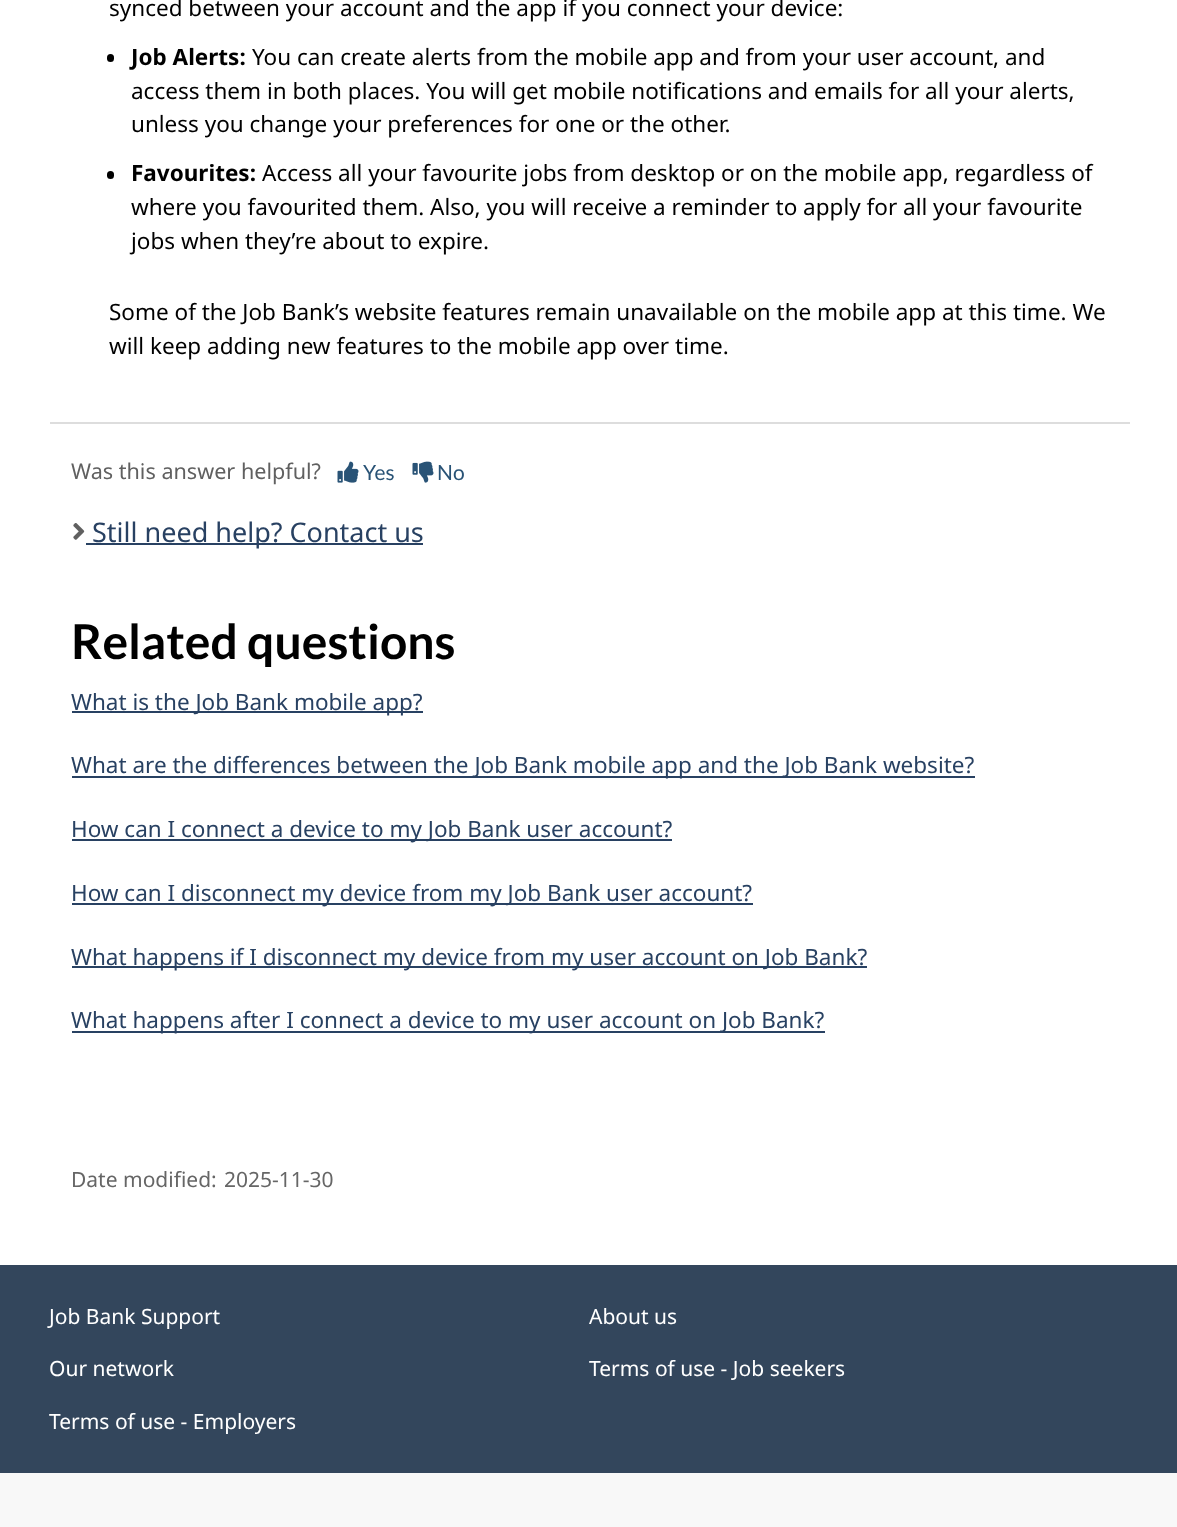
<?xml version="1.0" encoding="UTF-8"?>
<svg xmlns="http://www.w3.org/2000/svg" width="1177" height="1527">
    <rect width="100%" height="100%" fill="#FFFFFF"/>
    <text x="109" y="16" font-family="Noto Sans" font-size="22.5" fill="#000000">synced between your account and the app if you connect your device:</text>
    <rect x="107" y="54" width="7" height="8" rx="3.5" fill="#000000"/>
    <text x="131" y="65" font-family="Noto Sans" font-size="22.5" font-weight="700" fill="#000000">Job Alerts:</text>
    <text x="252" y="65" font-family="Noto Sans" font-size="22.5" fill="#000000">You can create alerts from the mobile app and from your user account, and</text>
    <text font-family="Noto Sans" font-size="22.5" fill="#000000">
        <tspan x="131" y="99">access them in both places. You will get mobile notifications and emails for all your alerts,</tspan>
        <tspan x="131" y="132">unless you change your preferences for one or the other.</tspan>
    </text>
    <rect x="107" y="171" width="7" height="8" rx="3.5" fill="#000000"/>
    <text x="131" y="181" font-family="Noto Sans" font-size="22.5" font-weight="700" fill="#000000">Favourites:</text>
    <text x="262" y="181" font-family="Noto Sans" font-size="22.5" fill="#000000">Access all your favourite jobs from desktop or on the mobile app, regardless of</text>
    <text font-family="Noto Sans" font-size="22.5" fill="#000000">
        <tspan x="131" y="215">where you favourited them. Also, you will receive a reminder to apply for all your favourite</tspan>
        <tspan x="131" y="249">jobs when they’re about to expire.</tspan>
    </text>
    <text font-family="Noto Sans" font-size="22.5" fill="#000000">
        <tspan x="109" y="320">Some of the Job Bank’s website features remain unavailable on the mobile app at this time. We</tspan>
        <tspan x="109" y="354">will keep adding new features to the mobile app over time.</tspan>
    </text>
    <rect x="50" y="422" width="1080" height="2" fill="#DDDDDD"/>
    <text x="71" y="479" font-family="Noto Sans" font-size="21.6" fill="#606060">Was this answer helpful?</text>
    <image x="337" y="461" width="22" height="22" href="img_01.png"/>
    <text x="363" y="480" font-family="Lato" font-size="21" fill="#295376">Yes</text>
    <image x="412" y="461" width="22" height="22" href="img_02.png"/>
    <text x="437" y="480" font-family="Lato" font-size="21" fill="#295376">No</text>
    <image x="73" y="523" width="12" height="17" href="img_03.png"/>
    <rect x="86" y="543" width="337" height="2" fill="#284162"/>
    <text x="92" y="542" font-family="Noto Sans" font-size="27" fill="#284162">Still need help? Contact us</text>
    <text x="71" y="659" font-family="Lato" font-size="48" font-weight="700" fill="#000000">Related questions</text>
    <rect x="72" y="711" width="351" height="2" fill="#284162"/>
    <text x="71" y="710" font-family="Noto Sans" font-size="22.5" fill="#284162">What is the Job Bank mobile app?</text>
    <rect x="72" y="776" width="903" height="2" fill="#284162"/>
    <text x="71" y="773" font-family="Noto Sans" font-size="22.5" fill="#284162">What are the differences between the Job Bank mobile app and the Job Bank website?</text>
    <rect x="72" y="839" width="600" height="2" fill="#284162"/>
    <text x="71" y="837" font-family="Noto Sans" font-size="22.5" fill="#284162">How can I connect a device to my Job Bank user account?</text>
    <rect x="72" y="903" width="681" height="2" fill="#284162"/>
    <text x="71" y="901" font-family="Noto Sans" font-size="22.5" fill="#284162">How can I disconnect my device from my Job Bank user account?</text>
    <rect x="72" y="966" width="795" height="2" fill="#284162"/>
    <text x="71" y="965" font-family="Noto Sans" font-size="22.5" fill="#284162">What happens if I disconnect my device from my user account on Job Bank?</text>
    <rect x="72" y="1031" width="753" height="2" fill="#284162"/>
    <text x="71" y="1028" font-family="Noto Sans" font-size="22.5" fill="#284162">What happens after I connect a device to my user account on Job Bank?</text>
    <text x="71" y="1187" font-family="Noto Sans" font-size="21" fill="#666666">Date modified:</text>
    <text x="224" y="1187" font-family="Noto Sans" font-size="21" fill="#666666">2025-11-30</text>
    <rect x="0" y="1265" width="1177" height="208" fill="#33465C"/>
    <text x="49" y="1324" font-family="Noto Sans" font-size="21" fill="#FFFFFF">Job Bank Support</text>
    <text x="589" y="1324" font-family="Noto Sans" font-size="21" fill="#FFFFFF">About us</text>
    <text x="49" y="1376" font-family="Noto Sans" font-size="21" fill="#FFFFFF">Our network</text>
    <text x="589" y="1376" font-family="Noto Sans" font-size="21" fill="#FFFFFF">Terms of use - Job seekers</text>
    <text x="49" y="1429" font-family="Noto Sans" font-size="21" fill="#FFFFFF">Terms of use - Employers</text>
    <rect x="0" y="1473" width="1177" height="54" fill="#F8F8F8"/>
</svg>
